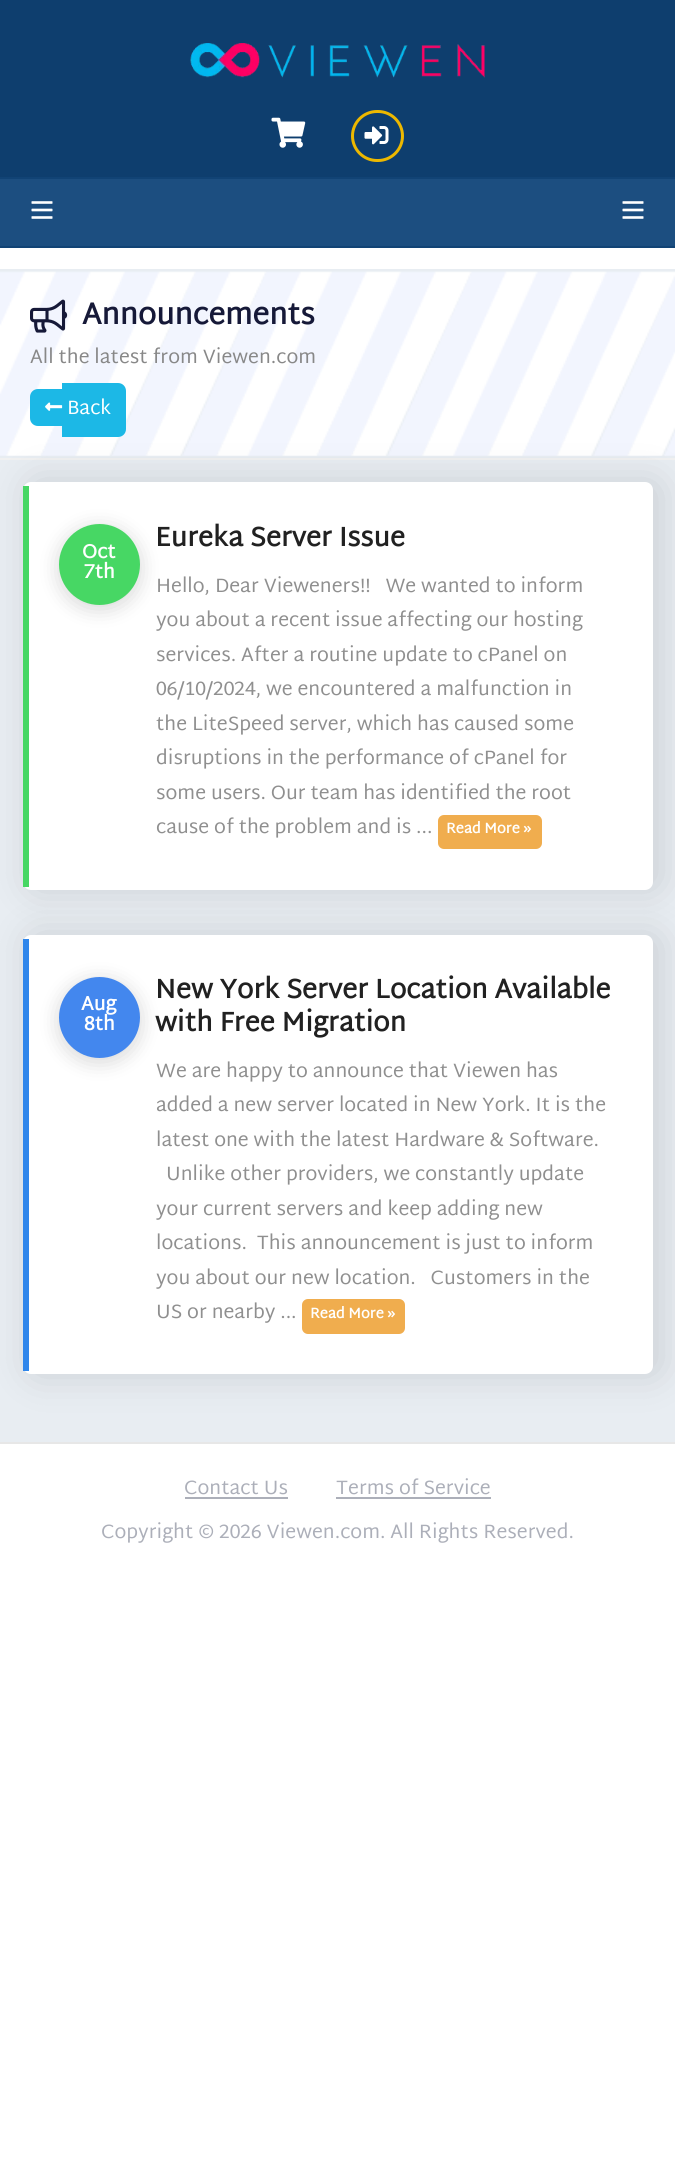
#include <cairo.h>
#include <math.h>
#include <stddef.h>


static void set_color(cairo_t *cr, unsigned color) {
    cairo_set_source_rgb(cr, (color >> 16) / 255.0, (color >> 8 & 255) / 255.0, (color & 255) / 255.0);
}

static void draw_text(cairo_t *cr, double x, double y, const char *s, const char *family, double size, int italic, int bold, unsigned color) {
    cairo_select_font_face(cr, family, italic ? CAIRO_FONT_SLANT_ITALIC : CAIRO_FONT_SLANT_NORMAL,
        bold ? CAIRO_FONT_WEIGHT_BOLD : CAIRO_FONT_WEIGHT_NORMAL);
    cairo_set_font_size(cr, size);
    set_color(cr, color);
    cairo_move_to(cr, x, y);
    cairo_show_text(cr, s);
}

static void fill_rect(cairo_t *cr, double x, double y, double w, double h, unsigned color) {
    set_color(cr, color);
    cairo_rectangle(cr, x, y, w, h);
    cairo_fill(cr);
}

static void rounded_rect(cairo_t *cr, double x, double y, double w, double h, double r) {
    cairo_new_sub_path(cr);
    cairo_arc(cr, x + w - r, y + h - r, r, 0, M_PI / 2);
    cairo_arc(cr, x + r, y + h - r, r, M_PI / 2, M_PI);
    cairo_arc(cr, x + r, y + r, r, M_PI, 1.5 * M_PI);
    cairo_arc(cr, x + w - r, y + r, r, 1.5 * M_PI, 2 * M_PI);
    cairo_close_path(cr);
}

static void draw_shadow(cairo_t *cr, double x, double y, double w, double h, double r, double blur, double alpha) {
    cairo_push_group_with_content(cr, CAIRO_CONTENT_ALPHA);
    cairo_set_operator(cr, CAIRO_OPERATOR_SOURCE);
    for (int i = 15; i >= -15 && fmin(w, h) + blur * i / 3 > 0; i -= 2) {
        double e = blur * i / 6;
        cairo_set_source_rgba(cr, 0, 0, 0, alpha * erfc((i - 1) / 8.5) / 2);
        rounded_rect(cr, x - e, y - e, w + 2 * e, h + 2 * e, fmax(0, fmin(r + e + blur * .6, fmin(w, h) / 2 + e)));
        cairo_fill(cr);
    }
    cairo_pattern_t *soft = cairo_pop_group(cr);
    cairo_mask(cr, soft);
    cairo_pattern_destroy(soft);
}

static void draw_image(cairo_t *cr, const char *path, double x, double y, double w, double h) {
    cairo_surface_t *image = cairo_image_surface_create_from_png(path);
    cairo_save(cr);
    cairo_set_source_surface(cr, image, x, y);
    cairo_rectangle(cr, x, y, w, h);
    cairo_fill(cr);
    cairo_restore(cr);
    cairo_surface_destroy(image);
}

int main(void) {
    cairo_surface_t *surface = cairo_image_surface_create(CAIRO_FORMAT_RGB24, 675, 2158);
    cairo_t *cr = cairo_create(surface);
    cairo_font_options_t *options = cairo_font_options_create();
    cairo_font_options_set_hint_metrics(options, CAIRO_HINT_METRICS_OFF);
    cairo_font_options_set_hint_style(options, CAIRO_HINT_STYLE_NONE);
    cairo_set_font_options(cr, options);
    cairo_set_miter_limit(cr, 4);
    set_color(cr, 0xFFFFFF);
    cairo_paint(cr);
    fill_rect(cr, 0, 0, 675, 177, 0x0E3E6E);
    draw_image(cr, "assets/img1.png", 190, 43, 295, 35);
    draw_image(cr, "assets/img2.png", 271, 117, 35, 31);
    rounded_rect(cr, 352.5, 111.5, 50, 49, 24.5);
    set_color(cr, 0xEDB800);
    cairo_set_line_width(cr, 3);
    cairo_stroke(cr);
    draw_image(cr, "assets/img3.png", 364, 126, 25, 19);
    fill_rect(cr, 0, 179, 675, 67, 0x1C4E80);
    fill_rect(cr, 0, 177, 675, 2, 0x114375);
    fill_rect(cr, 0, 246, 675, 2, 0x114375);
    draw_image(cr, "assets/img4.png", 31, 201, 22, 18);
    draw_image(cr, "assets/img4.png", 622, 201, 22, 18);
    fill_rect(cr, 0, 269, 675, 1173, 0xE8EDF2);
    draw_image(cr, "assets/img5.png", 0, 271, 675, 185);
    fill_rect(cr, 0, 458, 675, 2, 0xF1F1F1);
    draw_image(cr, "assets/img6.png", 30, 299, 38, 34);
    draw_text(cr, 82, 324, "Announcements", "Martel Sans", 30, 0, 1, 0x161938);
    draw_text(cr, 30, 363, "All the latest from Viewen.com", "Martel Sans", 19.5, 0, 0, 0x888888);
    set_color(cr, 0x000000);
    draw_shadow(cr, 29, 480, 633, 411, 9, 20, 0.12);
    set_color(cr, 0x1CB8E6);
    cairo_new_path(cr);
    cairo_move_to(cr, 38, 389);
    cairo_line_to(cr, 62, 389);
    cairo_line_to(cr, 62, 426);
    cairo_line_to(cr, 38, 426);
    cairo_curve_to(cr, 33.5, 426, 30, 422.5, 30, 418);
    cairo_line_to(cr, 30, 397);
    cairo_curve_to(cr, 30, 392.5, 33.5, 389, 38, 389);
    cairo_close_path(cr);
    cairo_fill(cr);
    cairo_new_path(cr);
    cairo_move_to(cr, 62, 383);
    cairo_line_to(cr, 118, 383);
    cairo_curve_to(cr, 122.5, 383, 126, 386.5, 126, 391);
    cairo_line_to(cr, 126, 429);
    cairo_curve_to(cr, 126, 433.5, 122.5, 437, 118, 437);
    cairo_line_to(cr, 62, 437);
    cairo_close_path(cr);
    cairo_fill(cr);
    draw_image(cr, "assets/img7.png", 45, 402, 18, 9);
    draw_text(cr, 67, 414, "Back", "Martel Sans", 19.5, 0, 0, 0xFFFFFF);
    rounded_rect(cr, 23, 482, 630, 408, 8);
    cairo_fill(cr);
    fill_rect(cr, 23, 486, 6, 401, 0x47D764);
    set_color(cr, 0x000000);
    draw_shadow(cr, 59, 528, 81, 81, 40.5, 10.5, 0.16);
    set_color(cr, 0x47D764);
    cairo_arc(cr, 99.5, 564.5, 40.5, 0, 2 * M_PI);
    cairo_fill(cr);
    draw_text(cr, 82, 558, "Oct", "Martel Sans", 19.5, 0, 1, 0xFFFFFF);
    draw_text(cr, 84, 578, "7th", "Martel Sans", 19.5, 0, 1, 0xFFFFFF);
    draw_text(cr, 155, 546, "Eureka Server Issue", "Martel Sans", 27, 0, 1, 0x212121);
    draw_text(cr, 156, 592, "Hello, Dear Vieweners!!   We wanted to inform", "Martel Sans", 19.5, 0, 0, 0x8F8F8F);
    draw_text(cr, 156, 626, "you about a recent issue affecting our hosting", "Martel Sans", 19.5, 0, 0, 0x8F8F8F);
    draw_text(cr, 156, 661, "services. After a routine update to cPanel on", "Martel Sans", 19.5, 0, 0, 0x8F8F8F);
    draw_text(cr, 156, 695, "06/10/2024, we encountered a malfunction in", "Martel Sans", 19.5, 0, 0, 0x8F8F8F);
    draw_text(cr, 156, 730, "the LiteSpeed server, which has caused some", "Martel Sans", 19.5, 0, 0, 0x8F8F8F);
    draw_text(cr, 156, 764, "disruptions in the performance of cPanel for", "Martel Sans", 19.5, 0, 0, 0x8F8F8F);
    draw_text(cr, 156, 799, "some users. Our team has identified the root", "Martel Sans", 19.5, 0, 0, 0x8F8F8F);
    draw_text(cr, 156, 833, "cause of the problem and is ...", "Martel Sans", 19.5, 0, 0, 0x8F8F8F);
    set_color(cr, 0xF0AD4E);
    rounded_rect(cr, 438, 815, 104, 34, 6);
    cairo_fill(cr);
    draw_text(cr, 446, 833, "Read More »", "Martel Sans", 14.5, 0, 1, 0xFFFFFF);
    set_color(cr, 0x000000);
    draw_shadow(cr, 29, 933, 633, 443, 9, 20, 0.12);
    set_color(cr, 0xFFFFFF);
    rounded_rect(cr, 23, 935, 630, 439, 8);
    cairo_fill(cr);
    fill_rect(cr, 23, 939, 6, 432, 0x2F86EB);
    set_color(cr, 0x000000);
    draw_shadow(cr, 59, 981, 81, 81, 40.5, 10.5, 0.16);
    set_color(cr, 0x4387EE);
    cairo_arc(cr, 99.5, 1017.5, 40.5, 0, 2 * M_PI);
    cairo_fill(cr);
    draw_text(cr, 81, 1010, "Aug", "Martel Sans", 19.5, 0, 1, 0xFFFFFF);
    draw_text(cr, 84, 1030, "8th", "Martel Sans", 19.5, 0, 1, 0xFFFFFF);
    draw_text(cr, 155, 998, "New York Server Location Available", "Martel Sans", 27, 0, 1, 0x212121);
    draw_text(cr, 155, 1031, "with Free Migration", "Martel Sans", 27, 0, 1, 0x212121);
    draw_text(cr, 156, 1077, "We are happy to announce that Viewen has", "Martel Sans", 19.5, 0, 0, 0x8F8F8F);
    draw_text(cr, 156, 1111, "added a new server located in New York. It is the", "Martel Sans", 19.5, 0, 0, 0x8F8F8F);
    draw_text(cr, 156, 1146, "latest one with the latest Hardware & Software.", "Martel Sans", 19.5, 0, 0, 0x8F8F8F);
    draw_text(cr, 166, 1180, "Unlike other providers, we constantly update", "Martel Sans", 19.5, 0, 0, 0x8F8F8F);
    draw_text(cr, 156, 1215, "your current servers and keep adding new", "Martel Sans", 19.5, 0, 0, 0x8F8F8F);
    draw_text(cr, 156, 1249, "locations.  This announcement is just to inform", "Martel Sans", 19.5, 0, 0, 0x8F8F8F);
    draw_text(cr, 156, 1284, "you about our new location.   Customers in the", "Martel Sans", 19.5, 0, 0, 0x8F8F8F);
    draw_text(cr, 156, 1318, "US or nearby ...", "Martel Sans", 19.5, 0, 0, 0x8F8F8F);
    set_color(cr, 0xF0AD4E);
    rounded_rect(cr, 302, 1299, 103, 35, 6);
    cairo_fill(cr);
    draw_text(cr, 310, 1318, "Read More »", "Martel Sans", 14.5, 0, 1, 0xFFFFFF);
    fill_rect(cr, 0, 1442, 675, 2, 0xE7E7E7);
    draw_text(cr, 184, 1494, "Contact Us", "Martel Sans", 19.5, 0, 0, 0xACAFB9);
    fill_rect(cr, 185, 1497, 103, 2, 0xACAFB9);
    draw_text(cr, 336, 1494, "Terms of Service", "Martel Sans", 19.5, 0, 0, 0xACAFB9);
    fill_rect(cr, 336, 1497, 155, 2, 0xACAFB9);
    draw_text(cr, 101, 1538, "Copyright © 2026 Viewen.com. All Rights Reserved.", "Martel Sans", 19.5, 0, 0, 0xACAFB9);
    cairo_surface_write_to_png(surface, "output.png");
    cairo_font_options_destroy(options);
    cairo_destroy(cr);
    cairo_surface_destroy(surface);
    return 0;
}
